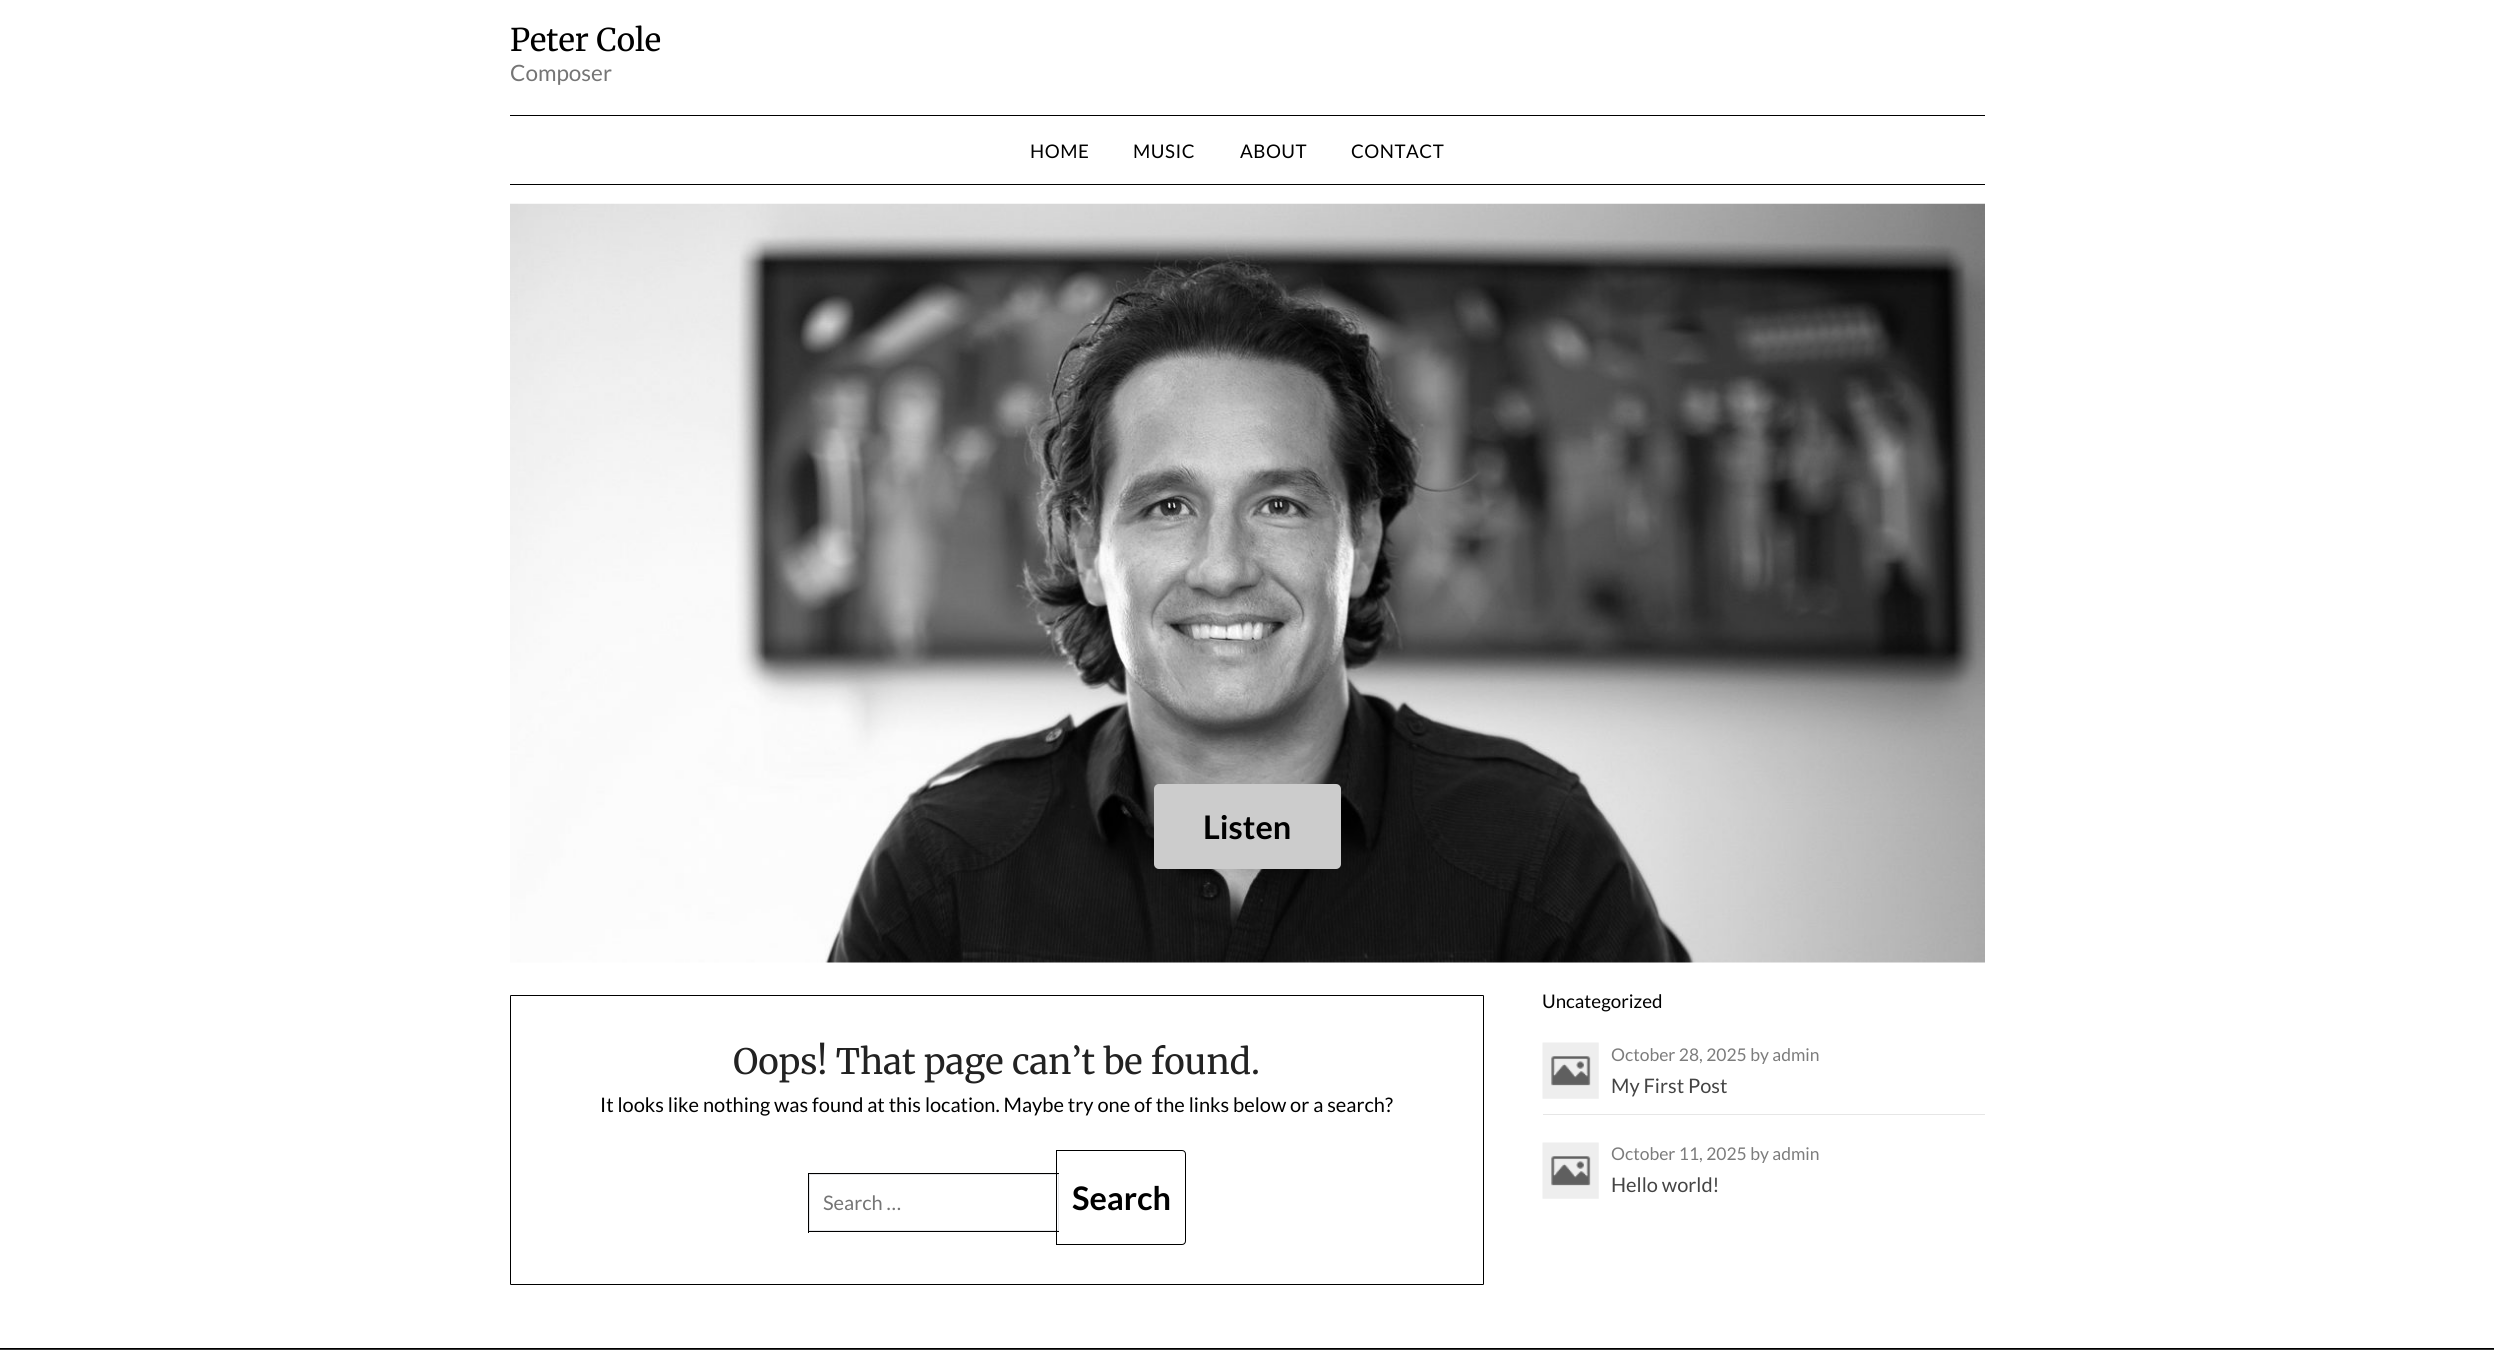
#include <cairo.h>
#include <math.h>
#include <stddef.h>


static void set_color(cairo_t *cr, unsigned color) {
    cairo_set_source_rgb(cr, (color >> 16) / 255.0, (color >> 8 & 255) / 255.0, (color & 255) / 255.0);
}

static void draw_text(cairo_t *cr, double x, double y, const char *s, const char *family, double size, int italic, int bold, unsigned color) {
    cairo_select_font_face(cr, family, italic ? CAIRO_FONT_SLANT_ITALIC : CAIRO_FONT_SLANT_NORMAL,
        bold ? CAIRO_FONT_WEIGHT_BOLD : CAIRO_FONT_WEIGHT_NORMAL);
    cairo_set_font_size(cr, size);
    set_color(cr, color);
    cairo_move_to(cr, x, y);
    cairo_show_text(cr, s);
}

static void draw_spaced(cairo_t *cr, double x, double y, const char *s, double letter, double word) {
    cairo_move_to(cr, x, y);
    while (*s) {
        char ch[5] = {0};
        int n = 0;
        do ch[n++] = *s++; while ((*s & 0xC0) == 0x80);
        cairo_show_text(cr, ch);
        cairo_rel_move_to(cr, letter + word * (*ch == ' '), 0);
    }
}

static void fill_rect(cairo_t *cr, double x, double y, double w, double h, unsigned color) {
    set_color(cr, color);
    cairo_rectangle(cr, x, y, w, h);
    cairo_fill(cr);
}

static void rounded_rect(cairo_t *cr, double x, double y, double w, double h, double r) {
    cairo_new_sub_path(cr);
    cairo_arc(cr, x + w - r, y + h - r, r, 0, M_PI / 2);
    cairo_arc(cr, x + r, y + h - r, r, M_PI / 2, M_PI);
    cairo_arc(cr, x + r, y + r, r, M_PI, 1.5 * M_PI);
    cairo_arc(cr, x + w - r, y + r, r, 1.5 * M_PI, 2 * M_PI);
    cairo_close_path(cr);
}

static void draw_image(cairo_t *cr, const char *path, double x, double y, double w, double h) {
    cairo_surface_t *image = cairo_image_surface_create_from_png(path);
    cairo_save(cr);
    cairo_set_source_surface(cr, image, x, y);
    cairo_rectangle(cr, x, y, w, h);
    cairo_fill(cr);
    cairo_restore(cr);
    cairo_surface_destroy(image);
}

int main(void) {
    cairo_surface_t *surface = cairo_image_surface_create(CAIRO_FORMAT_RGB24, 2494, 1364);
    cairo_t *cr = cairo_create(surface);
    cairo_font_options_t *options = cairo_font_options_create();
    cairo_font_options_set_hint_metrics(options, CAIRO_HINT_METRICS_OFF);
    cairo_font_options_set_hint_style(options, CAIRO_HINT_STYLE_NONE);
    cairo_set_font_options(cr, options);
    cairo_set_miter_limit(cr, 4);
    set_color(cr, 0xFFFFFF);
    cairo_paint(cr);
    draw_text(cr, 510, 51, "Peter Cole", "Merriweather", 31.25, 0, 0, 0x000000);
    draw_text(cr, 510, 81, "Composer", "Lato", 22.5, 0, 0, 0x757575);
    fill_rect(cr, 510, 115, 1475, 1, 0x000000);
    fill_rect(cr, 510, 184, 1475, 1, 0x000000);
    cairo_set_font_size(cr, 18.75);
    draw_spaced(cr, 1030, 158, "HOME", 0.5, 0);
    draw_spaced(cr, 1133, 158, "MUSIC", 0.5, 0);
    draw_spaced(cr, 1240, 158, "ABOUT", 0.5, 0);
    draw_spaced(cr, 1351, 158, "CONTACT", 0.5, 0);
    draw_image(cr, "assets/img1.png", 510, 203, 1475, 760);
    set_color(cr, 0xCCCCCC);
    rounded_rect(cr, 1154, 784, 187, 85, 5);
    cairo_fill(cr);
    draw_text(cr, 1203, 839, "Listen", "Lato", 32.5, 0, 1, 0x000000);
    rounded_rect(cr, 510.5, 995.5, 973, 289, 0.5);
    cairo_set_line_width(cr, 1);
    cairo_stroke(cr);
    draw_text(cr, 733, 1074, "Oops! That page can’t be found.", "Merriweather", 35, 0, 0, 0x222222);
    draw_text(cr, 600, 1112, "It looks like nothing was found at this location. Maybe try one of the links below or a search?", "Lato", 20, 0, 0, 0x000000);
    fill_rect(cr, 808, 1173, 251, 1, 0x000000);
    fill_rect(cr, 808, 1231, 251, 1, 0x000000);
    fill_rect(cr, 808, 1173, 1, 60, 0x000000);
    cairo_rectangle(cr, 809.5, 1174.5, 249, 56);
    set_color(cr, 0xE5E6E9);
    cairo_stroke(cr);
    draw_text(cr, 823, 1210, "Search …", "Lato", 20, 0, 0, 0x757575);
    cairo_new_path(cr);
    cairo_move_to(cr, 1056.5, 1150.5);
    cairo_line_to(cr, 1182, 1150.5);
    cairo_curve_to(cr, 1184, 1150.5, 1185.5, 1152, 1185.5, 1154);
    cairo_line_to(cr, 1185.5, 1241);
    cairo_curve_to(cr, 1185.5, 1243, 1184, 1244.5, 1182, 1244.5);
    cairo_line_to(cr, 1056.5, 1244.5);
    cairo_close_path(cr);
    set_color(cr, 0x000000);
    cairo_stroke(cr);
    draw_text(cr, 1072, 1210, "Search", "Lato", 32.5, 0, 1, 0x000000);
    draw_text(cr, 1542, 1008, "Uncategorized", "Lato", 18.75, 0, 0, 0x000000);
    fill_rect(cr, 1543, 1114, 442, 1, 0xE6E6E6);
    draw_image(cr, "assets/img2.png", 1542, 1042, 57, 57);
    draw_text(cr, 1611, 1061, "October 28, 2025 by admin", "Lato", 17.5, 0, 0, 0x7C7C7C);
    draw_text(cr, 1611, 1093, "My First Post", "Lato", 20, 0, 0, 0x444444);
    draw_image(cr, "assets/img3.png", 1542, 1142, 57, 57);
    draw_text(cr, 1611, 1160, "October 11, 2025 by admin", "Lato", 17.5, 0, 0, 0x7C7C7C);
    draw_text(cr, 1611, 1192, "Hello world!", "Lato", 20, 0, 0, 0x444444);
    fill_rect(cr, 0, 1348, 2494, 1, 0x000000);
    fill_rect(cr, 0, 1349, 2494, 1, 0x333333);
    cairo_surface_write_to_png(surface, "output.png");
    cairo_font_options_destroy(options);
    cairo_destroy(cr);
    cairo_surface_destroy(surface);
    return 0;
}
